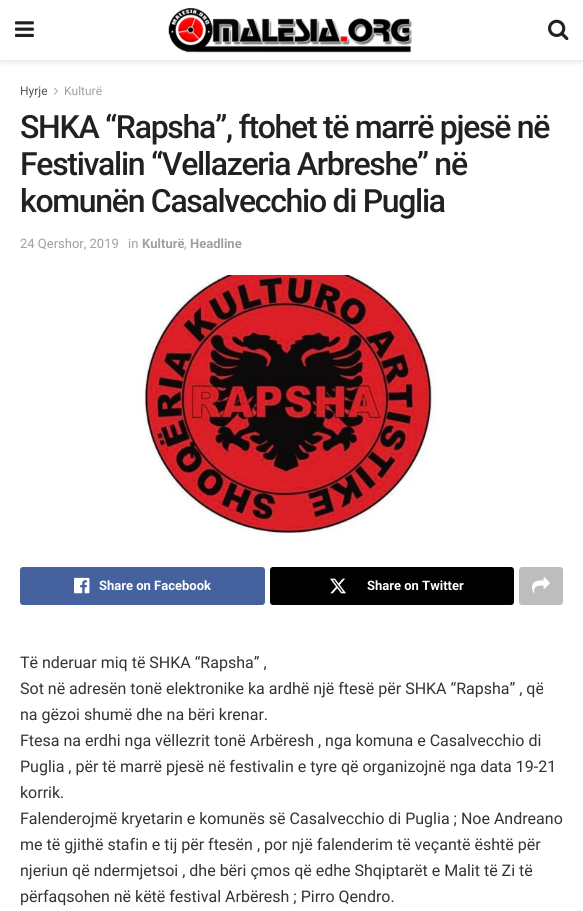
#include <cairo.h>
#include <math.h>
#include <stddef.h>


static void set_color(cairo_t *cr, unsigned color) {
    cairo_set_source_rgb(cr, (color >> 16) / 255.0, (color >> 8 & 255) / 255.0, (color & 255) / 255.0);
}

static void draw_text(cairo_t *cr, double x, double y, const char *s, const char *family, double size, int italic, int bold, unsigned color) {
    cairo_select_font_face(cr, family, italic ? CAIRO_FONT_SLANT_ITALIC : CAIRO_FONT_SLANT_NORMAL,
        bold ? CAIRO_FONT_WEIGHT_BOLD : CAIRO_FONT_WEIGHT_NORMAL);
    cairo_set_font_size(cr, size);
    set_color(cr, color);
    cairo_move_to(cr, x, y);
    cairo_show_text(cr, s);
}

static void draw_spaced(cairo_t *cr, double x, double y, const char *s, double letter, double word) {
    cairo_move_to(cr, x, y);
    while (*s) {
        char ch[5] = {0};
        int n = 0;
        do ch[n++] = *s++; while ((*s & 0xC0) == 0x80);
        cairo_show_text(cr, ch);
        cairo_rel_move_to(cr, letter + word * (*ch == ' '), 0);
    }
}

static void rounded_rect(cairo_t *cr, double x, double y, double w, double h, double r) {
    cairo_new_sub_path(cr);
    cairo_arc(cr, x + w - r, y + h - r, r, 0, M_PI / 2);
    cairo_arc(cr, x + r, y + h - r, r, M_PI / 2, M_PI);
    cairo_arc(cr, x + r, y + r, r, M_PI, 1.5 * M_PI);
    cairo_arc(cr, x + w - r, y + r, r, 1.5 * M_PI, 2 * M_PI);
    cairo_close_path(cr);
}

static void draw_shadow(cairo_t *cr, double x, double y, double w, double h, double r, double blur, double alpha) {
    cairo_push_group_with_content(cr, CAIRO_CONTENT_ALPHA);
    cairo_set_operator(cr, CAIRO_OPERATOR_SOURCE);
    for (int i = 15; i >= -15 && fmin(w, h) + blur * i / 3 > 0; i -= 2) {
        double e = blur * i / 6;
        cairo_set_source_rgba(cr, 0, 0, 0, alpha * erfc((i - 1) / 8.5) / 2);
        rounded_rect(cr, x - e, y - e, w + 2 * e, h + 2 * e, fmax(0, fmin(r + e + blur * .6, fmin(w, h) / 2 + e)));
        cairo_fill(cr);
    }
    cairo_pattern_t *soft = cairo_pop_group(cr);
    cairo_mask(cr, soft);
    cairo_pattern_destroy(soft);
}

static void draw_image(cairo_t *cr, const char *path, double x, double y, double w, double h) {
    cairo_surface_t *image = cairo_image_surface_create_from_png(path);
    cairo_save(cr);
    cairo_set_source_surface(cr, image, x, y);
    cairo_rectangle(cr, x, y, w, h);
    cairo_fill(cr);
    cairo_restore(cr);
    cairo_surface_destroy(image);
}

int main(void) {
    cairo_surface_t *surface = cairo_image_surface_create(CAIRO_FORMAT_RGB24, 583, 911);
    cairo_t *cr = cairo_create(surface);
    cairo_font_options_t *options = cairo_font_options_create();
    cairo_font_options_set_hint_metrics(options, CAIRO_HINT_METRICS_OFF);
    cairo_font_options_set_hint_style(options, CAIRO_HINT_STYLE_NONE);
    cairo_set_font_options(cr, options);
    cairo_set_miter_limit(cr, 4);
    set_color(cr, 0xFFFFFF);
    cairo_paint(cr);
    cairo_save(cr);
    cairo_rectangle(cr, 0, 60, 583, 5);
    cairo_clip(cr);
    set_color(cr, 0x000000);
    draw_shadow(cr, 0, 2, 583, 60, 0, 3, 0.1);
    cairo_restore(cr);
    draw_image(cr, "assets/img1.png", 15, 21, 19, 16);
    draw_image(cr, "assets/img2.png", 168, 8, 244, 45);
    draw_image(cr, "assets/img3.png", 548, 19, 21, 22);
    draw_text(cr, 20, 95, "Hyrje", "Roboto", 12, 0, 0, 0x53585C);
    draw_image(cr, "assets/img4.png", 54, 87, 4, 8);
    draw_text(cr, 64, 95, "Kulturë", "Roboto", 12, 0, 0, 0xA0A0A0);
    cairo_select_font_face(cr, "Roboto Medium", CAIRO_FONT_SLANT_NORMAL, CAIRO_FONT_WEIGHT_NORMAL);
    cairo_set_font_size(cr, 32);
    set_color(cr, 0x212121);
    draw_spaced(cr, 20, 138, "SHKA “Rapsha”, ftohet të marrë pjesë në", -1.3, 0);
    draw_spaced(cr, 20, 175, "Festivalin “Vellazeria Arbreshe” në", -1.3, 0);
    draw_spaced(cr, 20, 212, "komunën Casalvecchio di Puglia", -1.3, 0);
    draw_text(cr, 20, 248, "24 Qershor, 2019", "Roboto", 13, 0, 0, 0xA0A0A0);
    draw_text(cr, 128, 248, "in", "Roboto", 13, 0, 0, 0xA0A0A0);
    draw_text(cr, 142, 248, "Kulturë", "Roboto", 13, 0, 1, 0xA0A0A0);
    draw_text(cr, 184, 248, ",", "Roboto", 13, 0, 0, 0xA0A0A0);
    draw_text(cr, 190, 248, "Headline", "Roboto", 13, 0, 1, 0xA0A0A0);
    draw_image(cr, "assets/img5.png", 20, 275, 543, 272);
    set_color(cr, 0x45629F);
    rounded_rect(cr, 20, 567, 245, 38, 3);
    cairo_fill(cr);
    draw_image(cr, "assets/img6.png", 74, 577, 16, 17);
    draw_text(cr, 99, 590, "Share on Facebook", "Roboto", 13, 0, 1, 0xFFFFFF);
    set_color(cr, 0x000000);
    rounded_rect(cr, 270, 567, 244, 38, 3);
    cairo_fill(cr);
    draw_image(cr, "assets/img7.png", 330, 578, 16, 16);
    draw_text(cr, 367, 590, "Share on Twitter", "Roboto", 13, 0, 1, 0xFFFFFF);
    set_color(cr, 0xBDBDBD);
    rounded_rect(cr, 519, 567, 44, 38, 3);
    cairo_fill(cr);
    draw_image(cr, "assets/img8.png", 532, 577, 18, 17);
    draw_text(cr, 20, 668, "Të nderuar miq të SHKA “Rapsha” ,", "Roboto", 16, 0, 0, 0x333333);
    draw_text(cr, 20, 694, "Sot në adresën tonë elektronike ka ardhë një ftesë për SHKA “Rapsha” , që", "Roboto", 16, 0, 0, 0x333333);
    draw_text(cr, 20, 720, "na gëzoi shumë dhe na bëri krenar.", "Roboto", 16, 0, 0, 0x333333);
    draw_text(cr, 20, 746, "Ftesa na erdhi nga vëllezrit tonë Arbëresh , nga komuna e Casalvecchio di", "Roboto", 16, 0, 0, 0x333333);
    draw_text(cr, 20, 772, "Puglia , për të marrë pjesë në festivalin e tyre që organizojnë nga data 19-21", "Roboto", 16, 0, 0, 0x333333);
    draw_text(cr, 20, 798, "korrik.", "Roboto", 16, 0, 0, 0x333333);
    draw_text(cr, 20, 824, "Falenderojmë kryetarin e komunës së Casalvecchio di Puglia ; Noe Andreano", "Roboto", 16, 0, 0, 0x333333);
    draw_text(cr, 20, 850, "me të gjithë stafin e tij për ftesën , por një falenderim të veçantë është për", "Roboto", 16, 0, 0, 0x333333);
    draw_text(cr, 20, 876, "njeriun që ndermjetsoi , dhe bëri çmos që edhe Shqiptarët e Malit të Zi të", "Roboto", 16, 0, 0, 0x333333);
    draw_text(cr, 20, 902, "përfaqsohen në këtë festival Arbëresh ; Pirro Qendro.", "Roboto", 16, 0, 0, 0x333333);
    cairo_surface_write_to_png(surface, "output.png");
    cairo_font_options_destroy(options);
    cairo_destroy(cr);
    cairo_surface_destroy(surface);
    return 0;
}
